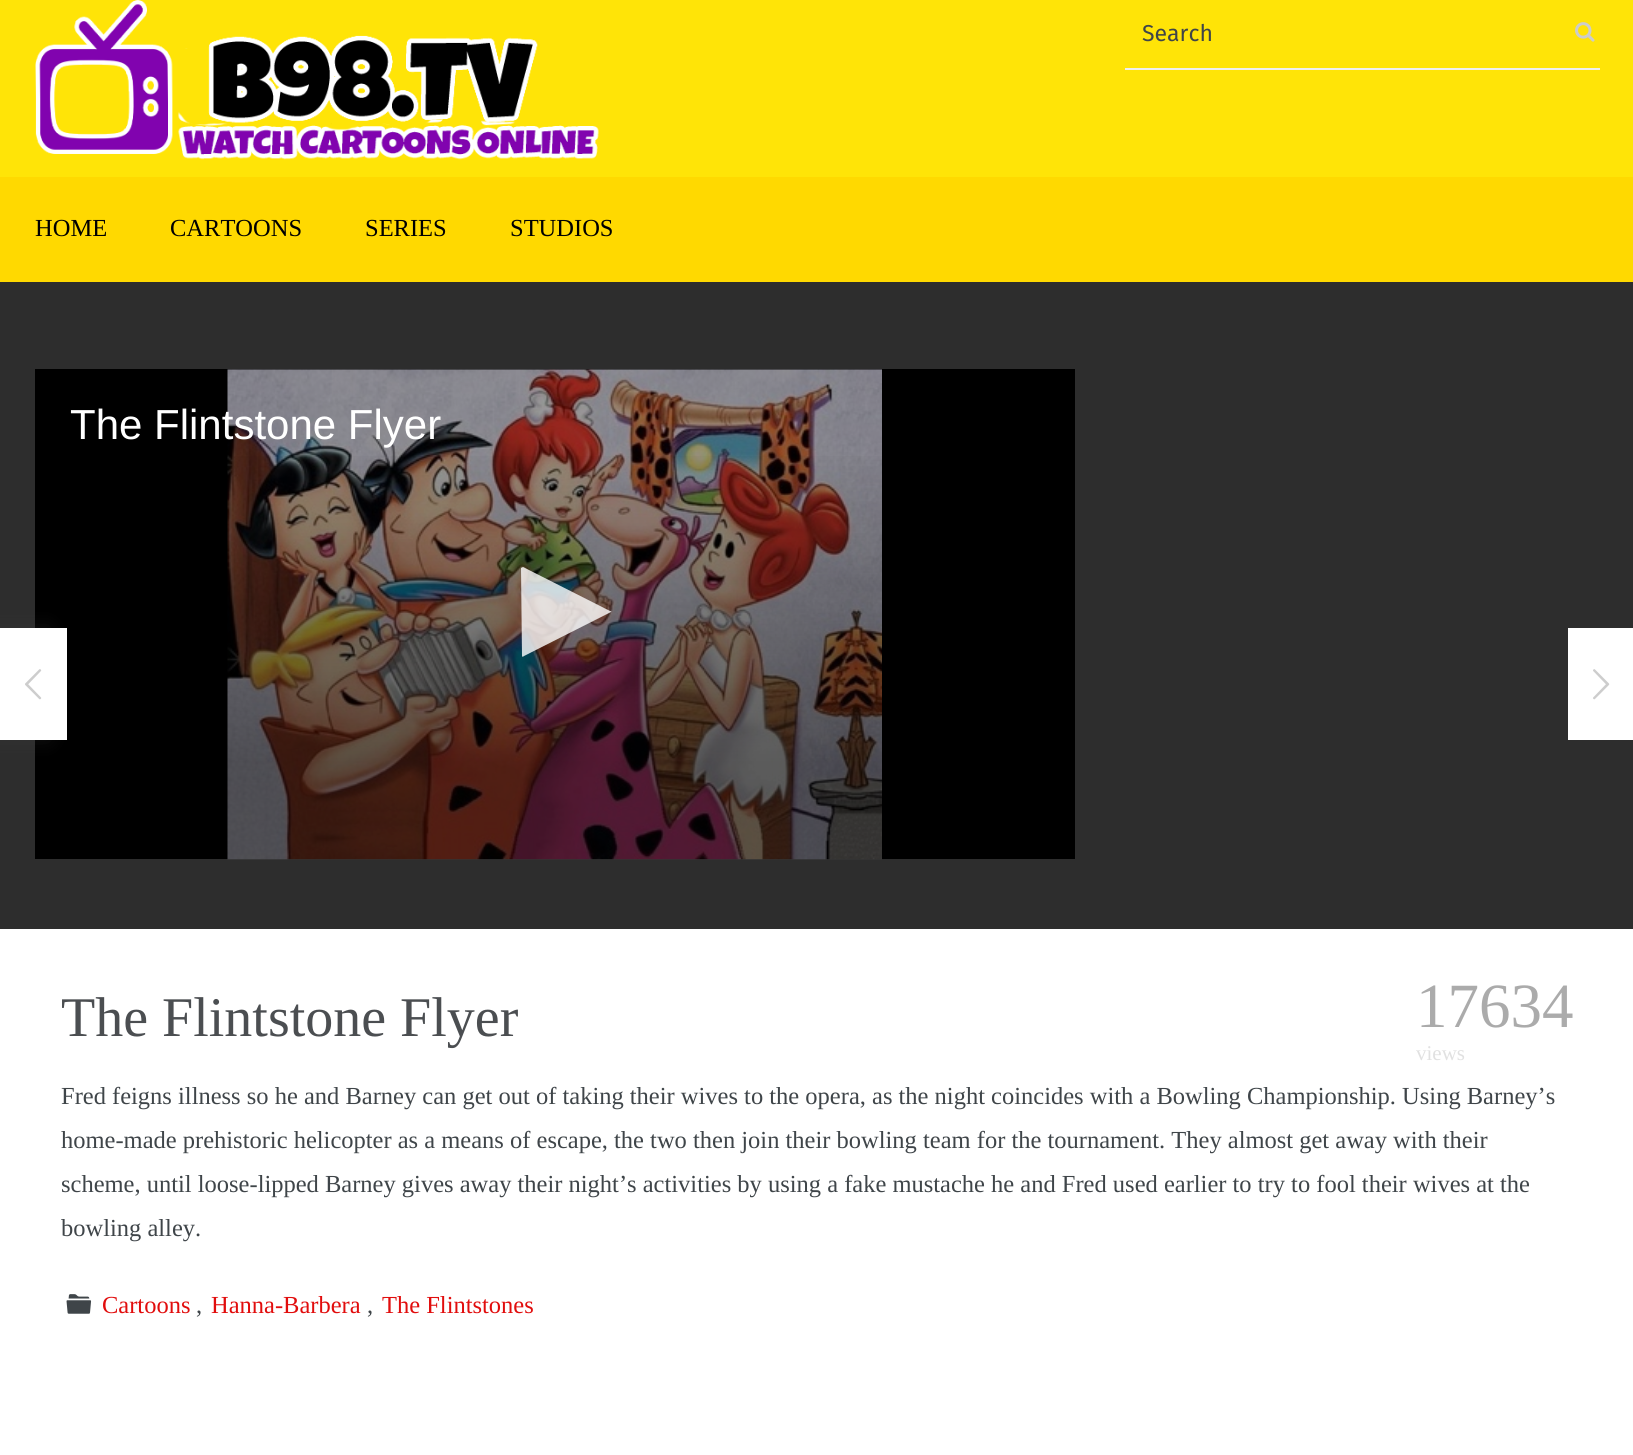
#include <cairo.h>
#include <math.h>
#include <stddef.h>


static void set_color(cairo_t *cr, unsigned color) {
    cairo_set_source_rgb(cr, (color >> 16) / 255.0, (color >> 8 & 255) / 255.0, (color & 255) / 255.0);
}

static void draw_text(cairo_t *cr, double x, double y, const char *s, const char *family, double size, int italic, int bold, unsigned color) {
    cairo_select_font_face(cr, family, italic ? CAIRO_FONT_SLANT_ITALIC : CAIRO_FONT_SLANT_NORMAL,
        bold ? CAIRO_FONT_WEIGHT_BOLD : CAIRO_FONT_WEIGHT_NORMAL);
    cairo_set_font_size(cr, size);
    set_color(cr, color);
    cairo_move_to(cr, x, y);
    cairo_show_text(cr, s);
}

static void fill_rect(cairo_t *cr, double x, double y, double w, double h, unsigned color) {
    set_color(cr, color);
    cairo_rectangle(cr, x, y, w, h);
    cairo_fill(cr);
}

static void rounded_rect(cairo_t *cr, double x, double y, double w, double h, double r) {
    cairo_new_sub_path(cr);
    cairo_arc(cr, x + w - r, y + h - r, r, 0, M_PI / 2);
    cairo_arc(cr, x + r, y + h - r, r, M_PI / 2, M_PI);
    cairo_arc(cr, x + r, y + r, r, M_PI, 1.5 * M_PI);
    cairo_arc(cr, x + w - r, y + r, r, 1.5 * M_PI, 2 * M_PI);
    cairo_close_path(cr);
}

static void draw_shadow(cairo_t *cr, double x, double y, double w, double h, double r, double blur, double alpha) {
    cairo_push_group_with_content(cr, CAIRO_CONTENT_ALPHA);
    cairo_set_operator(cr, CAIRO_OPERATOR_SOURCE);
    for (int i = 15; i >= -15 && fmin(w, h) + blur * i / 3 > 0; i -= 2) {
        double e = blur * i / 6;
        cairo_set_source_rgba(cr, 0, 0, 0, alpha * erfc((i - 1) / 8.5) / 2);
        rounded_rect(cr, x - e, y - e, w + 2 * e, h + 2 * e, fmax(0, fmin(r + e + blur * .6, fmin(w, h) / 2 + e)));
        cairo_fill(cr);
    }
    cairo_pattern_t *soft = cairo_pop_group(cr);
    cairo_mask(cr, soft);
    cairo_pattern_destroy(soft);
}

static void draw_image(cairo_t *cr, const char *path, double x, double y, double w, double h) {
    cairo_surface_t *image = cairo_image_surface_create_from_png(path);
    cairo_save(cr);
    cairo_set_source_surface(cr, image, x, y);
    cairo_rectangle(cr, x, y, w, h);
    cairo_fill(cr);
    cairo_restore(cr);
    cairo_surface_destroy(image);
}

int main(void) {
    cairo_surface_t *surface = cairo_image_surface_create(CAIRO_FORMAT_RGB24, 1633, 1455);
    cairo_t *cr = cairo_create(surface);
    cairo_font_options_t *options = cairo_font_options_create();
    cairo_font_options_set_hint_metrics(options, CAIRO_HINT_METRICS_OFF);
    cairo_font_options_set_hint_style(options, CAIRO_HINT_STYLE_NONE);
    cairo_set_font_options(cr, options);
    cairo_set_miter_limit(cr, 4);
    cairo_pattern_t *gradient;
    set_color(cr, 0xFFFFFF);
    cairo_paint(cr);
    fill_rect(cr, 0, 0, 1633, 177, 0xFFE407);
    draw_image(cr, "assets/img1.png", 35, 0, 564, 160);
    fill_rect(cr, 1125, 68, 475, 2, 0xEFEFEF);
    draw_text(cr, 1142, 41, "Search", "Fira Sans", 23, 0, 0, 0x3F4549);
    draw_image(cr, "assets/img2.png", 1575, 22, 20, 20);
    fill_rect(cr, 0, 177, 1633, 105, 0xFFD900);
    draw_text(cr, 35, 236, "HOME", "Liberation Serif", 24.5, 0, 0, 0x000000);
    draw_text(cr, 170, 236, "CARTOONS", "Liberation Serif", 24.5, 0, 0, 0x000000);
    draw_text(cr, 365, 236, "SERIES", "Liberation Serif", 24.5, 0, 0, 0x000000);
    draw_text(cr, 510, 236, "STUDIOS", "Liberation Serif", 24.5, 0, 0, 0x000000);
    fill_rect(cr, 0, 282, 1633, 647, 0x2D2D2D);
    fill_rect(cr, 35, 369, 1040, 490, 0x000000);
    draw_image(cr, "assets/img3.png", 227, 369, 655, 491);
    draw_text(cr, 70, 439, "The Flintstone Flyer", "Liberation Sans", 42, 0, 0, 0xFFFFFF);
    gradient = cairo_pattern_create_linear(555, 439, 555, 859);
    cairo_pattern_add_color_stop_rgba(gradient, 0, 0, 0, 0, 0);
    cairo_pattern_add_color_stop_rgba(gradient, 0.77, 0, 0, 0, 0.4);
    cairo_pattern_add_color_stop_rgba(gradient, 1, 0, 0, 0, 0.4);
    cairo_set_source(cr, gradient);
    cairo_pattern_destroy(gradient);
    cairo_rectangle(cr, 227, 456, 655, 403);
    cairo_fill(cr);
    cairo_set_source_rgba(cr, 1, 1, 1, 0.8);
    cairo_new_path(cr);
    cairo_move_to(cr, 524, 656);
    cairo_curve_to(cr, 523, 657, 522, 657, 522, 656);
    cairo_line_to(cr, 521, 568);
    cairo_line_to(cr, 523, 567);
    cairo_line_to(cr, 610, 611);
    cairo_curve_to(cr, 611, 611, 612, 612, 611, 612);
    cairo_close_path(cr);
    cairo_fill(cr);
    set_color(cr, 0x3C3C3C);
    draw_shadow(cr, -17, 628, 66, 112, 0, 9, 0.3);
    fill_rect(cr, 0, 628, 67, 112, 0xFFFFFF);
    draw_image(cr, "assets/img4.png", 25, 669, 17, 31);
    fill_rect(cr, 1568, 628, 65, 112, 0xFFFFFF);
    draw_image(cr, "assets/img5.png", 1593, 669, 17, 31);
    draw_text(cr, 61, 1036, "The Flintstone Flyer", "Liberation Serif", 56, 0, 0, 0x4B4E51);
    draw_text(cr, 1416, 1027, "17634", "Liberation Serif", 63, 0, 0, 0xABABAB);
    draw_text(cr, 1416, 1060, "views", "Liberation Serif", 21, 0, 0, 0xE1E1E1);
    draw_text(cr, 61, 1104, "Fred feigns illness so he and Barney can get out of taking their wives to the opera, as the night coincides with a Bowling Championship. Using Barney’s", "Liberation Serif", 24.5, 0, 0, 0x3F4549);
    draw_text(cr, 61, 1148, "home-made prehistoric helicopter as a means of escape, the two then join their bowling team for the tournament. They almost get away with their", "Liberation Serif", 24.5, 0, 0, 0x3F4549);
    draw_text(cr, 61, 1192, "scheme, until loose-lipped Barney gives away their night’s activities by using a fake mustache he and Fred used earlier to try to fool their wives at the", "Liberation Serif", 24.5, 0, 0, 0x3F4549);
    draw_text(cr, 61, 1236, "bowling alley.", "Liberation Serif", 24.5, 0, 0, 0x3F4549);
    draw_image(cr, "assets/img6.png", 66, 1294, 26, 20);
    draw_text(cr, 102, 1313, "Cartoons", "Liberation Serif", 24.5, 0, 0, 0xE10D0D);
    draw_text(cr, 196, 1313, ",", "Liberation Serif", 24.5, 0, 0, 0x3F4549);
    draw_text(cr, 211, 1313, "Hanna-Barbera", "Liberation Serif", 24.5, 0, 0, 0xE10D0D);
    draw_text(cr, 367, 1313, ",", "Liberation Serif", 24.5, 0, 0, 0x3F4549);
    draw_text(cr, 382, 1313, "The Flintstones", "Liberation Serif", 24.5, 0, 0, 0xE10D0D);
    cairo_surface_write_to_png(surface, "output.png");
    cairo_font_options_destroy(options);
    cairo_destroy(cr);
    cairo_surface_destroy(surface);
    return 0;
}
